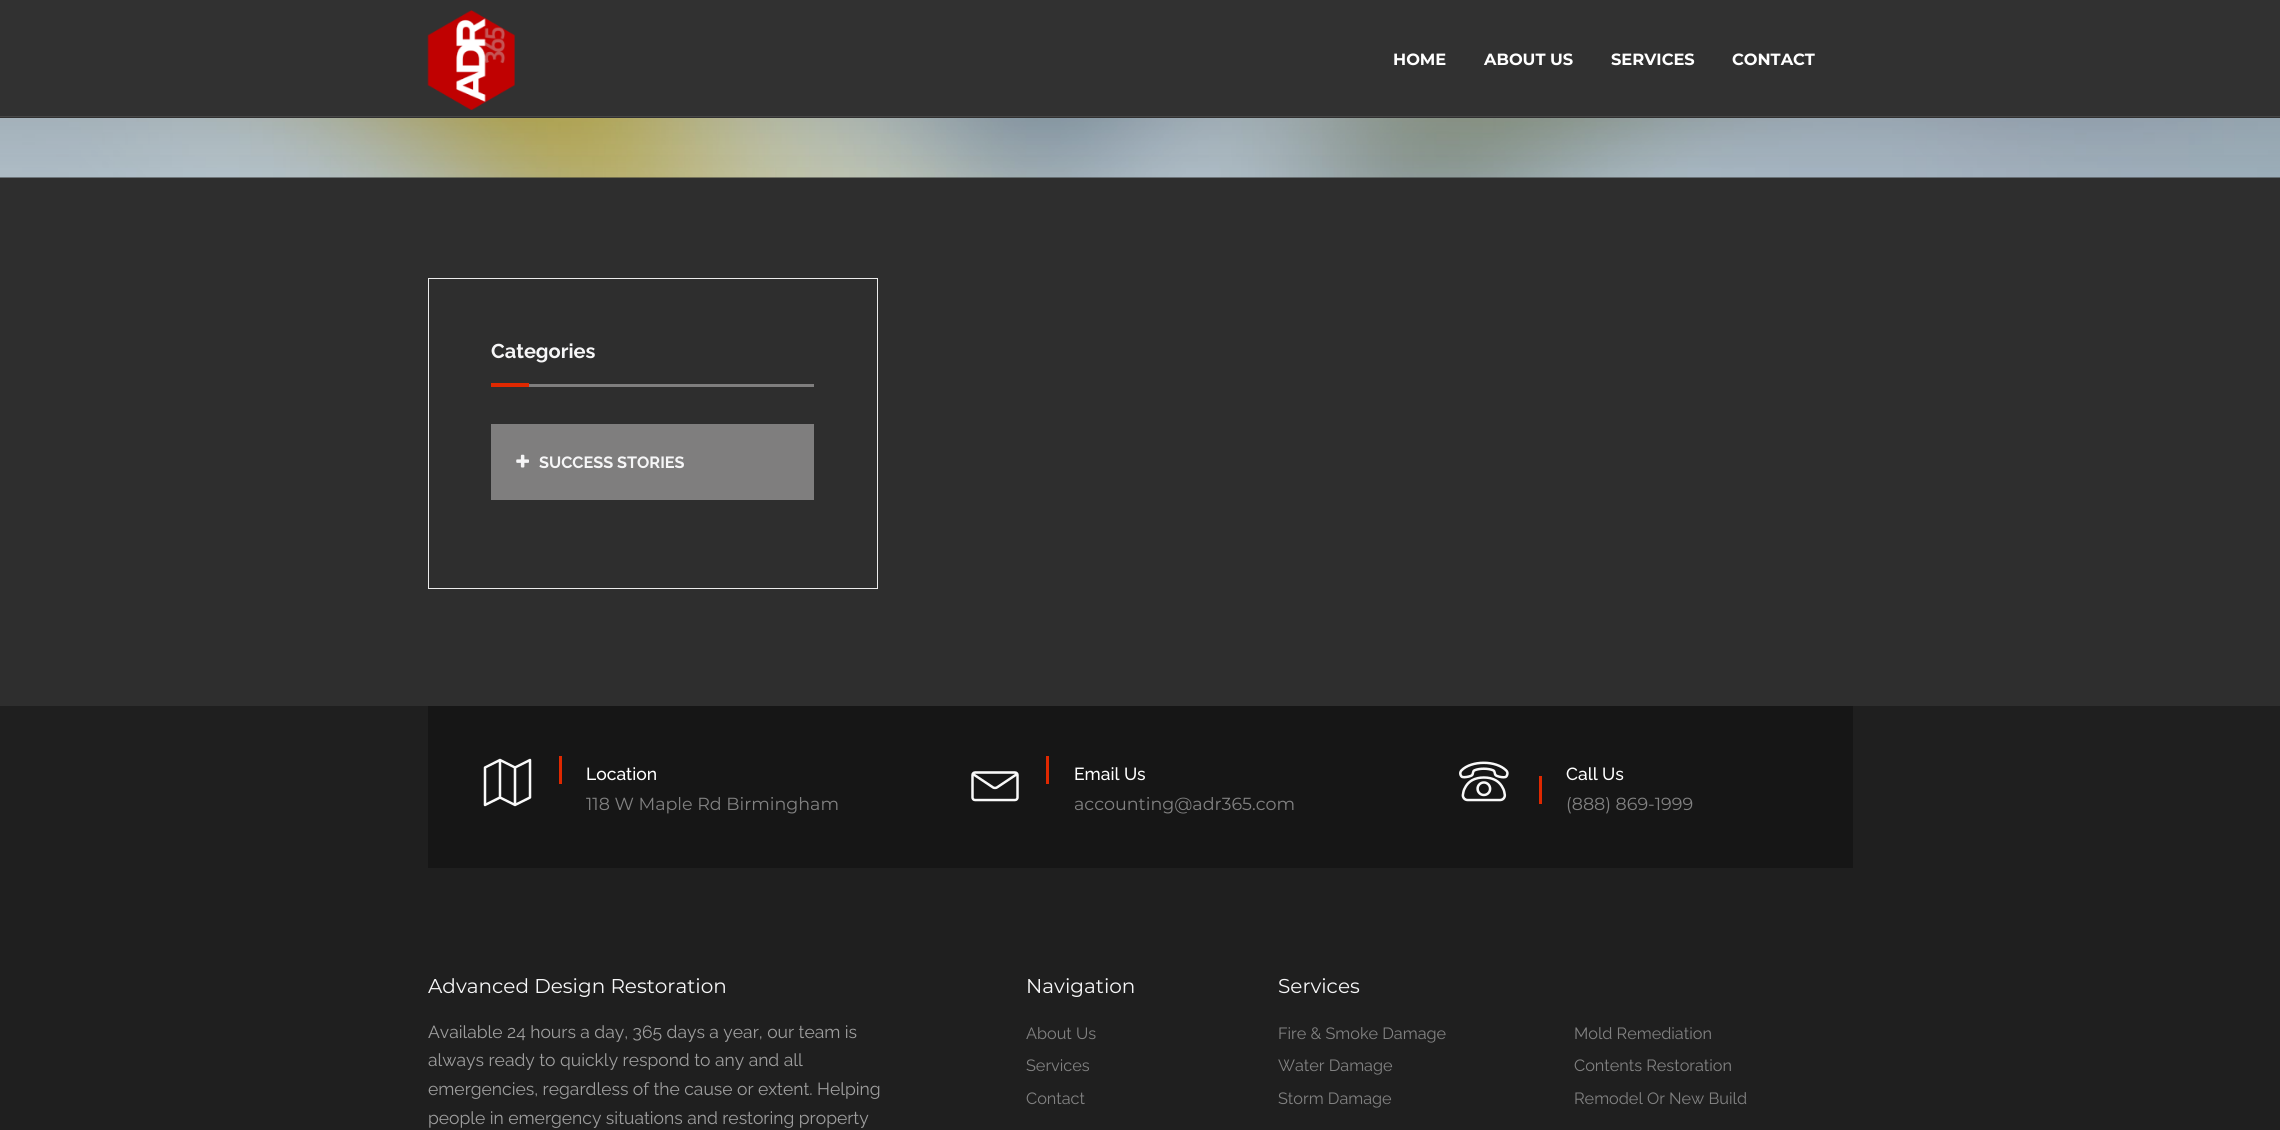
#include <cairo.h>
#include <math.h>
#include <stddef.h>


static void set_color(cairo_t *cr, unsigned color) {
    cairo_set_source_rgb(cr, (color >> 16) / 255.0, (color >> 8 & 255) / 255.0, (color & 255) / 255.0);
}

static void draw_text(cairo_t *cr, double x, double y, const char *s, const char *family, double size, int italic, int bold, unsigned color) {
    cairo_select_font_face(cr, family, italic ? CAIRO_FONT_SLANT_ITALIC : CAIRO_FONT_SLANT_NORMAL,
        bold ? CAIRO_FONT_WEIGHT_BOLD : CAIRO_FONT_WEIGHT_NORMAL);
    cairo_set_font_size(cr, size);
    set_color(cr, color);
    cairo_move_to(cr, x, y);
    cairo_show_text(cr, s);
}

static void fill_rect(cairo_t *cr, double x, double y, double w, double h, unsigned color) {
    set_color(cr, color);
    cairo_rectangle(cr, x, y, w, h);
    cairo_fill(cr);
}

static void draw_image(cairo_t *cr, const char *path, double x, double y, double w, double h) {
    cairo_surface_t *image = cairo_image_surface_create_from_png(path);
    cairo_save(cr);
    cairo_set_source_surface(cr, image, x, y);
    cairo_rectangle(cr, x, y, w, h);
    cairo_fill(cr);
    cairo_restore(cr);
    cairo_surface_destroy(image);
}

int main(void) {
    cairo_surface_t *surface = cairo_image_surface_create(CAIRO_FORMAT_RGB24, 2280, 1130);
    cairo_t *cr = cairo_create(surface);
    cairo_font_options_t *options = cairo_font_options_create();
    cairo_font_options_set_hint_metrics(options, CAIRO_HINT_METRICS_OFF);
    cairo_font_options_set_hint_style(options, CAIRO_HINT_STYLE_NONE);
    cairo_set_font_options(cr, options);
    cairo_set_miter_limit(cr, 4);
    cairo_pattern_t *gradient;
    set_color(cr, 0x2E2E2E);
    cairo_paint(cr);
    fill_rect(cr, 0, 0, 2280, 118, 0x313131);
    fill_rect(cr, 0, 116, 2280, 1, 0x464646);
    draw_image(cr, "assets/img1.png", 427, 10, 88, 100);
    draw_text(cr, 1393, 65, "HOME", "Montserrat", 16.25, 0, 1, 0xFFFFFF);
    draw_text(cr, 1484, 65, "ABOUT US", "Montserrat", 16.25, 0, 1, 0xFFFFFF);
    draw_text(cr, 1611, 65, "SERVICES", "Montserrat", 16.25, 0, 1, 0xFFFFFF);
    draw_text(cr, 1732, 65, "CONTACT", "Montserrat", 16.25, 0, 1, 0xFFFFFF);
    draw_image(cr, "assets/img2.png", 0, 118, 2280, 60);
    gradient = cairo_pattern_create_linear(1140, -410, 1140, 178);
    cairo_pattern_add_color_stop_rgba(gradient, 0, 0.098, 0.09, 0.09, 0.8);
    cairo_pattern_add_color_stop_rgba(gradient, 1, 0.133, 0.133, 0.133, 0.2);
    cairo_set_source(cr, gradient);
    cairo_pattern_destroy(gradient);
    cairo_rectangle(cr, 0, 118, 2280, 60);
    cairo_fill(cr);
    cairo_rectangle(cr, 428.5, 278.5, 449, 310);
    set_color(cr, 0xECECEC);
    cairo_set_line_width(cr, 1);
    cairo_stroke(cr);
    draw_text(cr, 491, 358, "Categories", "Raleway", 20, 0, 1, 0xF6F6F7);
    fill_rect(cr, 491, 383, 38, 4, 0xDF2800);
    fill_rect(cr, 529, 384, 285, 3, 0x7F7E7E);
    fill_rect(cr, 491, 424, 323, 76, 0x7F7E7E);
    draw_image(cr, "assets/img3.png", 516, 454, 13, 14);
    draw_text(cr, 539, 468, "SUCCESS STORIES", "Raleway", 16.25, 0, 1, 0xF6F6F7);
    fill_rect(cr, 0, 706, 2280, 424, 0x1F1F1F);
    fill_rect(cr, 428, 706, 1425, 162, 0x161616);
    draw_image(cr, "assets/img4.png", 483, 758, 49, 49);
    fill_rect(cr, 559, 756, 3, 28, 0xDF2800);
    draw_text(cr, 586, 780, "Location", "Raleway Medium", 17.5, 0, 0, 0xFFFFFF);
    draw_text(cr, 586, 810, "118 W Maple Rd Birmingham", "Montserrat", 17.5, 0, 0, 0x828282);
    draw_image(cr, "assets/img5.png", 971, 771, 48, 31);
    fill_rect(cr, 1046, 756, 3, 28, 0xDF2800);
    draw_text(cr, 1074, 780, "Email Us", "Raleway Medium", 17.5, 0, 0, 0xFFFFFF);
    draw_text(cr, 1074, 810, "accounting@adr365.com", "Montserrat", 17.5, 0, 0, 0x828282);
    draw_image(cr, "assets/img6.png", 1459, 761, 50, 41);
    fill_rect(cr, 1539, 776, 3, 28, 0xDF2800);
    draw_text(cr, 1566, 780, "Call Us", "Raleway Medium", 17.5, 0, 0, 0xFFFFFF);
    draw_text(cr, 1566, 810, "(888) 869-1999", "Montserrat", 17.5, 0, 0, 0x828282);
    draw_text(cr, 428, 993, "Advanced Design Restoration", "Montserrat", 20, 0, 0, 0xF6F6F7);
    draw_text(cr, 428, 1038, "Available 24 hours a day, 365 days a year, our team is", "Raleway", 17.5, 0, 0, 0x9E9E9E);
    draw_text(cr, 428, 1066, "always ready to quickly respond to any and all", "Raleway", 17.5, 0, 0, 0x9E9E9E);
    draw_text(cr, 428, 1095, "emergencies, regardless of the cause or extent. Helping", "Raleway", 17.5, 0, 0, 0x9E9E9E);
    draw_text(cr, 428, 1124, "people in emergency situations and restoring property", "Raleway", 17.5, 0, 0, 0x9E9E9E);
    draw_text(cr, 1026, 993, "Navigation", "Montserrat", 20, 0, 0, 0xF6F6F7);
    draw_text(cr, 1026, 1039, "About Us", "Raleway", 16.25, 0, 0, 0x828282);
    draw_text(cr, 1026, 1071, "Services", "Raleway", 16.25, 0, 0, 0x828282);
    draw_text(cr, 1026, 1104, "Contact", "Raleway", 16.25, 0, 0, 0x828282);
    draw_text(cr, 1278, 993, "Services", "Montserrat", 20, 0, 0, 0xF6F6F7);
    draw_text(cr, 1278, 1039, "Fire & Smoke Damage", "Raleway", 16.25, 0, 0, 0x828282);
    draw_text(cr, 1278, 1071, "Water Damage", "Raleway", 16.25, 0, 0, 0x828282);
    draw_text(cr, 1278, 1104, "Storm Damage", "Raleway", 16.25, 0, 0, 0x828282);
    draw_text(cr, 1574, 1039, "Mold Remediation", "Raleway", 16.25, 0, 0, 0x828282);
    draw_text(cr, 1574, 1071, "Contents Restoration", "Raleway", 16.25, 0, 0, 0x828282);
    draw_text(cr, 1574, 1104, "Remodel Or New Build", "Raleway", 16.25, 0, 0, 0x828282);
    cairo_surface_write_to_png(surface, "output.png");
    cairo_font_options_destroy(options);
    cairo_destroy(cr);
    cairo_surface_destroy(surface);
    return 0;
}
